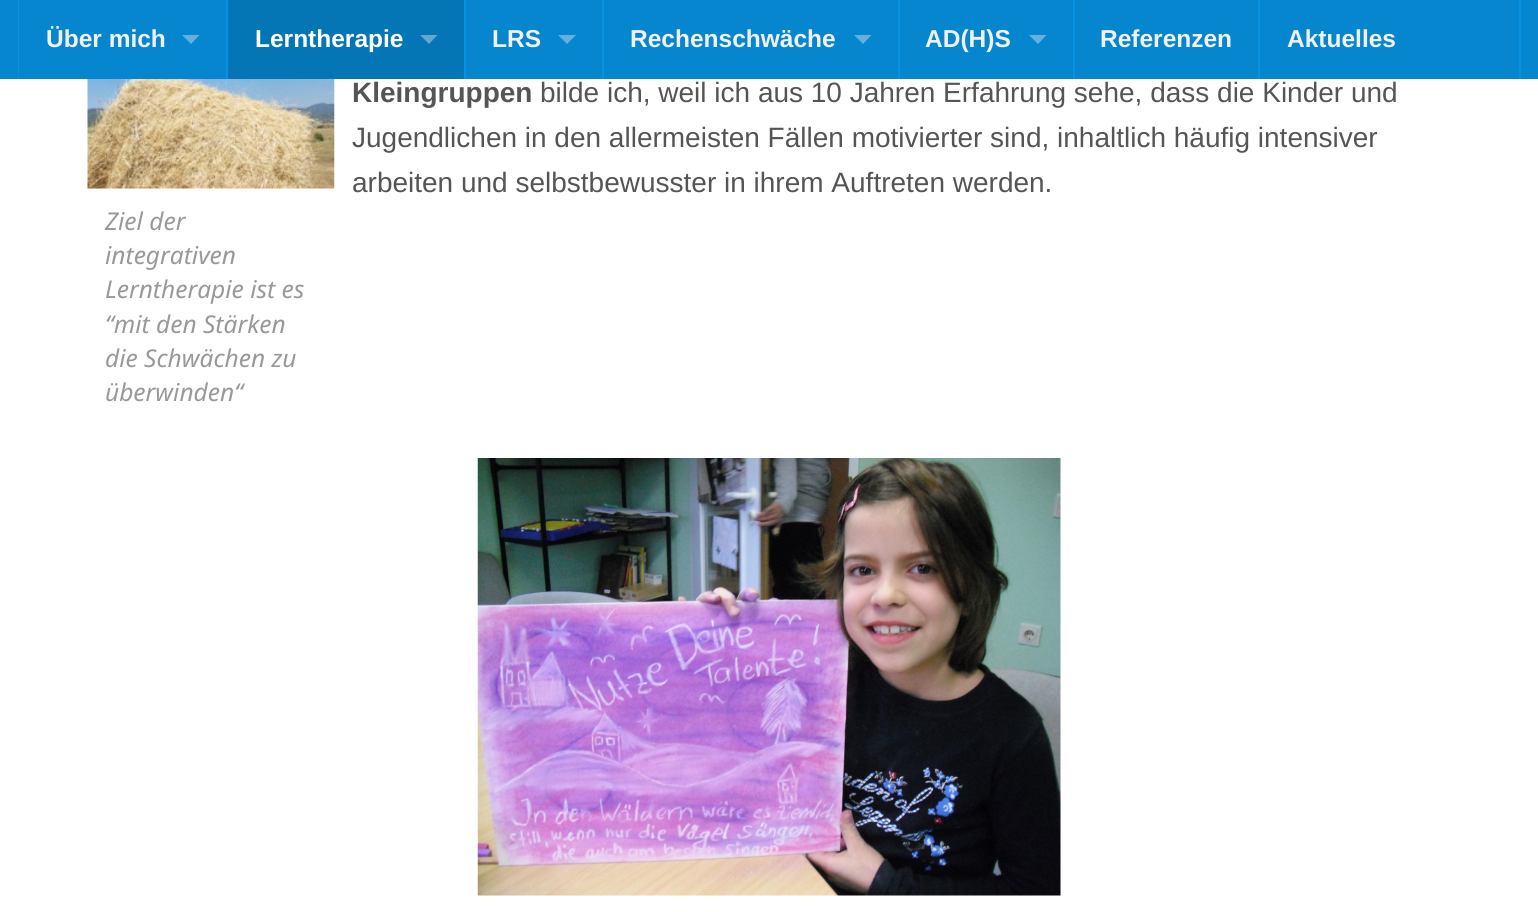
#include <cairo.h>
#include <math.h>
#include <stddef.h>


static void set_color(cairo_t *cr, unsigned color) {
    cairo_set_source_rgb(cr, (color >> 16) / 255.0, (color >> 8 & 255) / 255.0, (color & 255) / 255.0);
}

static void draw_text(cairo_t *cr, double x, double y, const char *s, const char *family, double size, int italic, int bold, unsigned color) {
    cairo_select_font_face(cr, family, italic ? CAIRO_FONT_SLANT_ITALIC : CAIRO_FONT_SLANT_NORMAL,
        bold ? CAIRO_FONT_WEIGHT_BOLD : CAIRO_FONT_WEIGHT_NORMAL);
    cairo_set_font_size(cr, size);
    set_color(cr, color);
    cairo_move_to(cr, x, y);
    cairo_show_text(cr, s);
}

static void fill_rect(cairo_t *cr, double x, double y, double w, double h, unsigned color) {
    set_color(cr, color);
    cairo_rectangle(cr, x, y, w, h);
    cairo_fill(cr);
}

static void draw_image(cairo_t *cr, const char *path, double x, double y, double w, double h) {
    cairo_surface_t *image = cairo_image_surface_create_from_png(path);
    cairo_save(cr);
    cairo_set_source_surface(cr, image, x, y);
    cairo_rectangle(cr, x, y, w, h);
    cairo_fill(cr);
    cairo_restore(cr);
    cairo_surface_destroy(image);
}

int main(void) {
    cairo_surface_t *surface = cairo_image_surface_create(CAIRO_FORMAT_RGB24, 1538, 912);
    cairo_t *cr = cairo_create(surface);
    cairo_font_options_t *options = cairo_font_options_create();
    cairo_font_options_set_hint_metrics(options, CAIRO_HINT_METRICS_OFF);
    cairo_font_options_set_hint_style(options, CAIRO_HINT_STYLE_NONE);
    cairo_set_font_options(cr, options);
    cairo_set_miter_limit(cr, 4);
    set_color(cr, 0xFFFFFF);
    cairo_paint(cr);
    fill_rect(cr, 0, 0, 1538, 79, 0x0686CF);
    fill_rect(cr, 18, 0, 1, 79, 0x0793E3);
    draw_text(cr, 46, 47, "Über mich", "Liberation Sans", 24.5, 0, 1, 0xF1F1F1);
    set_color(cr, 0x64B1DD);
    cairo_new_path(cr);
    cairo_move_to(cr, 182, 35);
    cairo_line_to(cr, 199.5, 35);
    cairo_line_to(cr, 191, 44);
    cairo_close_path(cr);
    cairo_fill(cr);
    fill_rect(cr, 226, 0, 2, 79, 0x0793E3);
    fill_rect(cr, 228, 0, 236, 79, 0x0576B5);
    draw_text(cr, 255, 47, "Lerntherapie", "Liberation Sans", 24.5, 0, 1, 0xFFFFFF);
    set_color(cr, 0x63A7CD);
    cairo_new_path(cr);
    cairo_move_to(cr, 420, 35);
    cairo_line_to(cr, 437.5, 35);
    cairo_line_to(cr, 429, 44);
    cairo_close_path(cr);
    cairo_fill(cr);
    fill_rect(cr, 464, 0, 2, 79, 0x0793E3);
    draw_text(cr, 492, 47, "LRS", "Liberation Sans", 24.5, 0, 1, 0xF1F1F1);
    set_color(cr, 0x64B1DD);
    cairo_new_path(cr);
    cairo_move_to(cr, 558, 35);
    cairo_line_to(cr, 576, 35);
    cairo_line_to(cr, 567, 44);
    cairo_close_path(cr);
    cairo_fill(cr);
    fill_rect(cr, 602, 0, 2, 79, 0x0793E3);
    draw_text(cr, 630, 47, "Rechenschwäche", "Liberation Sans", 24.5, 0, 1, 0xF1F1F1);
    set_color(cr, 0x64B1DD);
    cairo_new_path(cr);
    cairo_move_to(cr, 854, 35);
    cairo_line_to(cr, 871.5, 35);
    cairo_line_to(cr, 863, 44);
    cairo_close_path(cr);
    cairo_fill(cr);
    fill_rect(cr, 898, 0, 2, 79, 0x0793E3);
    draw_text(cr, 925, 47, "AD(H)S", "Liberation Sans", 24.5, 0, 1, 0xF1F1F1);
    set_color(cr, 0x64B1DD);
    cairo_new_path(cr);
    cairo_move_to(cr, 1029, 35);
    cairo_line_to(cr, 1046.5, 35);
    cairo_line_to(cr, 1038, 44);
    cairo_close_path(cr);
    cairo_fill(cr);
    fill_rect(cr, 1073, 0, 2, 79, 0x0793E3);
    draw_text(cr, 1100, 47, "Referenzen", "Liberation Sans", 24.5, 0, 1, 0xF1F1F1);
    fill_rect(cr, 1258, 0, 2, 79, 0x0793E3);
    draw_text(cr, 1287, 47, "Aktuelles", "Liberation Sans", 24.5, 0, 1, 0xF1F1F1);
    fill_rect(cr, 1519, 0, 2, 79, 0x0793E3);
    draw_text(cr, 352, 102, "Kleingruppen", "Liberation Sans", 28, 0, 1, 0x555555);
    draw_text(cr, 540, 102, "bilde ich, weil ich aus 10 Jahren Erfahrung sehe, dass die Kinder und", "Liberation Sans", 28, 0, 0, 0x555555);
    draw_text(cr, 352, 147, "Jugendlichen in den allermeisten Fällen motivierter sind, inhaltlich häufig intensiver", "Liberation Sans", 28, 0, 0, 0x555555);
    draw_text(cr, 352, 192, "arbeiten und selbstbewusster in ihrem Auftreten werden.", "Liberation Sans", 28, 0, 0, 0x555555);
    draw_image(cr, "assets/img1.png", 87, 79, 248, 110);
    draw_text(cr, 105, 230, "Ziel der", "Noto Sans", 24.5, 1, 0, 0x999999);
    draw_text(cr, 105, 264, "integrativen", "Noto Sans", 24.5, 1, 0, 0x999999);
    draw_text(cr, 105, 298, "Lerntherapie ist es", "Noto Sans", 24.5, 1, 0, 0x999999);
    draw_text(cr, 105, 333, "“mit den Stärken", "Noto Sans", 24.5, 1, 0, 0x999999);
    draw_text(cr, 105, 367, "die Schwächen zu", "Noto Sans", 24.5, 1, 0, 0x999999);
    draw_text(cr, 105, 401, "überwinden“", "Noto Sans", 24.5, 1, 0, 0x999999);
    draw_image(cr, "assets/img2.png", 477, 458, 584, 438);
    cairo_surface_write_to_png(surface, "output.png");
    cairo_font_options_destroy(options);
    cairo_destroy(cr);
    cairo_surface_destroy(surface);
    return 0;
}
